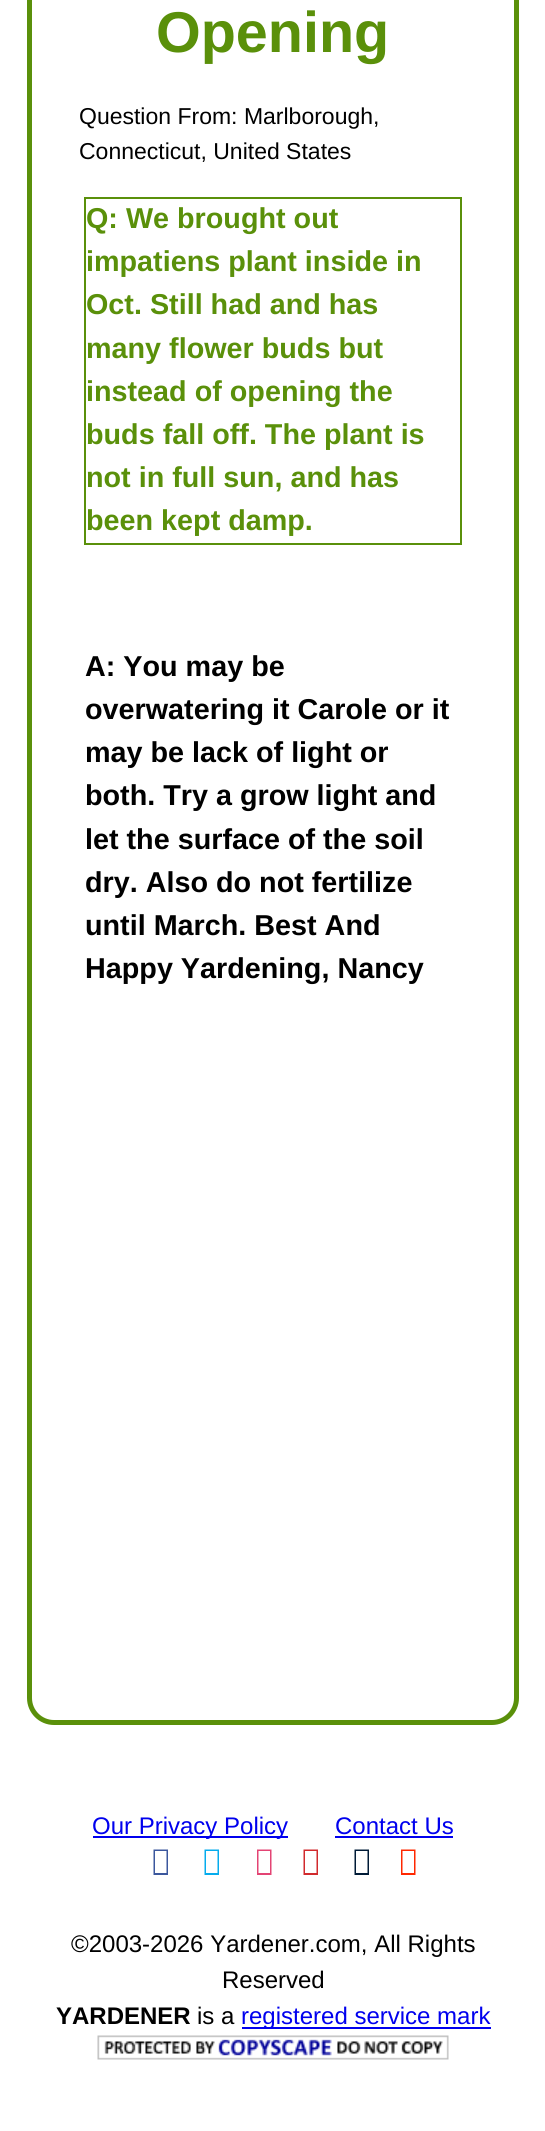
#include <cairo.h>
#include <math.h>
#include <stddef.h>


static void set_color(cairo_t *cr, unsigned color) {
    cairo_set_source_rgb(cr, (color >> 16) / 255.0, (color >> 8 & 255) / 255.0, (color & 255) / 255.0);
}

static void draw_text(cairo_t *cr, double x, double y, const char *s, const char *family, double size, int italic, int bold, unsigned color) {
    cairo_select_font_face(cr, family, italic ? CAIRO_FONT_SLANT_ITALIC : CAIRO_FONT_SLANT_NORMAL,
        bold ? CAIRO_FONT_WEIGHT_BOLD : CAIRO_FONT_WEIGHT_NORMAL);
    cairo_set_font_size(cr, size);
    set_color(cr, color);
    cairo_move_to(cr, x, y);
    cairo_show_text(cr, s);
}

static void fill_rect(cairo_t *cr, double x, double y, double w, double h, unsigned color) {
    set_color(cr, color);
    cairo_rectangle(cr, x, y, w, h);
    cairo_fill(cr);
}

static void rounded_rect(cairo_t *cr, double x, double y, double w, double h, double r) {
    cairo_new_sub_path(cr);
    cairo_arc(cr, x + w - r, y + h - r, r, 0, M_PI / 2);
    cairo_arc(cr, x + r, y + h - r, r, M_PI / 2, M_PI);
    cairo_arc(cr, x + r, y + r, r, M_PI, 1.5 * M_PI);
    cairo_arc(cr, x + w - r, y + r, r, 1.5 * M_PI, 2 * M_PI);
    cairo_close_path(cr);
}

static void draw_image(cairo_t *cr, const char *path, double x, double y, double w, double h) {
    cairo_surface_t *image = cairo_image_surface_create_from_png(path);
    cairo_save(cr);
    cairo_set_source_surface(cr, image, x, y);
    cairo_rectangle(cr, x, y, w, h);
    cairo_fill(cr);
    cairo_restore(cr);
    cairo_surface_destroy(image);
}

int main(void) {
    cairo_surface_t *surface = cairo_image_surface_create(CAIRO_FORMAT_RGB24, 545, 2131);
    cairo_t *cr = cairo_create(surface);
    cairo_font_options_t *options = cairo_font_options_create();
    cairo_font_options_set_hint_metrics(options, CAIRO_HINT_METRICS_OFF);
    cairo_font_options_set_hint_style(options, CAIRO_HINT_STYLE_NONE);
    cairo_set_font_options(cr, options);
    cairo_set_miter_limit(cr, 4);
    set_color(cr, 0xFFFFFF);
    cairo_paint(cr);
    rounded_rect(cr, 29.5, -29.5, 487, 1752, 24.5);
    set_color(cr, 0x5A900A);
    cairo_set_line_width(cr, 5);
    cairo_stroke(cr);
    draw_text(cr, 156, 52, "Opening", "Liberation Sans", 57.5, 0, 1, 0x5A900A);
    draw_text(cr, 79, 124, "Question From: Marlborough,", "Liberation Sans", 23, 0, 0, 0x000000);
    draw_text(cr, 79, 159, "Connecticut, United States", "Liberation Sans", 23, 0, 0, 0x000000);
    cairo_rectangle(cr, 85, 198, 376, 346);
    set_color(cr, 0x5A900A);
    cairo_set_line_width(cr, 2);
    cairo_stroke(cr);
    draw_text(cr, 86, 228, "Q: We brought out", "Liberation Sans", 28.75, 0, 1, 0x5A900A);
    draw_text(cr, 86, 271, "impatiens plant inside in", "Liberation Sans", 28.75, 0, 1, 0x5A900A);
    draw_text(cr, 86, 314, "Oct. Still had and has", "Liberation Sans", 28.75, 0, 1, 0x5A900A);
    draw_text(cr, 86, 358, "many flower buds but", "Liberation Sans", 28.75, 0, 1, 0x5A900A);
    draw_text(cr, 86, 401, "instead of opening the", "Liberation Sans", 28.75, 0, 1, 0x5A900A);
    draw_text(cr, 86, 444, "buds fall off. The plant is", "Liberation Sans", 28.75, 0, 1, 0x5A900A);
    draw_text(cr, 86, 487, "not in full sun, and has", "Liberation Sans", 28.75, 0, 1, 0x5A900A);
    draw_text(cr, 86, 530, "been kept damp.", "Liberation Sans", 28.75, 0, 1, 0x5A900A);
    draw_text(cr, 85, 676, "A: You may be", "Liberation Sans", 28.75, 0, 1, 0x000000);
    draw_text(cr, 85, 719, "overwatering it Carole or it", "Liberation Sans", 28.75, 0, 1, 0x000000);
    draw_text(cr, 85, 762, "may be lack of light or", "Liberation Sans", 28.75, 0, 1, 0x000000);
    draw_text(cr, 85, 805, "both. Try a grow light and", "Liberation Sans", 28.75, 0, 1, 0x000000);
    draw_text(cr, 85, 849, "let the surface of the soil", "Liberation Sans", 28.75, 0, 1, 0x000000);
    draw_text(cr, 85, 892, "dry. Also do not fertilize", "Liberation Sans", 28.75, 0, 1, 0x000000);
    draw_text(cr, 85, 935, "until March. Best And", "Liberation Sans", 28.75, 0, 1, 0x000000);
    draw_text(cr, 85, 978, "Happy Yardening, Nancy", "Liberation Sans", 28.75, 0, 1, 0x000000);
    fill_rect(cr, 93, 1836, 195, 2, 0x0000EE);
    draw_text(cr, 92, 1834, "Our Privacy Policy", "Liberation Sans", 24, 0, 0, 0x0000EE);
    draw_text(cr, 335, 1834, "Contact Us", "Liberation Sans", 24, 0, 0, 0x0000EE);
    fill_rect(cr, 335, 1836, 118, 2, 0x0000EE);
    set_color(cr, 0x3B579D);
    cairo_new_path(cr);
    cairo_move_to(cr, 153.5, 1875);
    cairo_line_to(cr, 153.5, 1849.5);
    cairo_line_to(cr, 168, 1849.5);
    cairo_line_to(cr, 168, 1875);
    cairo_close_path(cr);
    cairo_move_to(cr, 155, 1873);
    cairo_line_to(cr, 166.5, 1873);
    cairo_line_to(cr, 166.5, 1851);
    cairo_line_to(cr, 155, 1851);
    cairo_close_path(cr);
    cairo_fill(cr);
    set_color(cr, 0x05ACED);
    cairo_new_path(cr);
    cairo_move_to(cr, 204.5, 1875);
    cairo_line_to(cr, 204.5, 1849.5);
    cairo_line_to(cr, 219, 1849.5);
    cairo_line_to(cr, 219, 1875);
    cairo_close_path(cr);
    cairo_move_to(cr, 206, 1873);
    cairo_line_to(cr, 217.5, 1873);
    cairo_line_to(cr, 217.5, 1851);
    cairo_line_to(cr, 206, 1851);
    cairo_close_path(cr);
    cairo_fill(cr);
    set_color(cr, 0xE34474);
    cairo_new_path(cr);
    cairo_move_to(cr, 257, 1875);
    cairo_line_to(cr, 257, 1849.5);
    cairo_line_to(cr, 271.5, 1849.5);
    cairo_line_to(cr, 271.5, 1875);
    cairo_close_path(cr);
    cairo_move_to(cr, 258.5, 1873);
    cairo_line_to(cr, 270, 1873);
    cairo_line_to(cr, 270, 1851);
    cairo_line_to(cr, 258.5, 1851);
    cairo_close_path(cr);
    cairo_fill(cr);
    set_color(cr, 0xD12A2D);
    cairo_new_path(cr);
    cairo_move_to(cr, 303.5, 1875);
    cairo_line_to(cr, 303.5, 1849.5);
    cairo_line_to(cr, 318, 1849.5);
    cairo_line_to(cr, 318, 1875);
    cairo_close_path(cr);
    cairo_move_to(cr, 305, 1873);
    cairo_line_to(cr, 316.5, 1873);
    cairo_line_to(cr, 316.5, 1851);
    cairo_line_to(cr, 305, 1851);
    cairo_close_path(cr);
    cairo_fill(cr);
    set_color(cr, 0x001B37);
    cairo_new_path(cr);
    cairo_move_to(cr, 354.5, 1875);
    cairo_line_to(cr, 354.5, 1849.5);
    cairo_line_to(cr, 369, 1849.5);
    cairo_line_to(cr, 369, 1875);
    cairo_close_path(cr);
    cairo_move_to(cr, 356, 1873);
    cairo_line_to(cr, 367.5, 1873);
    cairo_line_to(cr, 367.5, 1851);
    cairo_line_to(cr, 356, 1851);
    cairo_close_path(cr);
    cairo_fill(cr);
    set_color(cr, 0xFF2700);
    cairo_new_path(cr);
    cairo_move_to(cr, 401, 1875);
    cairo_line_to(cr, 401, 1849.5);
    cairo_line_to(cr, 415.5, 1849.5);
    cairo_line_to(cr, 415.5, 1875);
    cairo_close_path(cr);
    cairo_move_to(cr, 402.5, 1873);
    cairo_line_to(cr, 414, 1873);
    cairo_line_to(cr, 414, 1851);
    cairo_line_to(cr, 402.5, 1851);
    cairo_close_path(cr);
    cairo_fill(cr);
    draw_text(cr, 71, 1952, "©2003-2026 Yardener.com, All Rights", "Liberation Sans", 24, 0, 0, 0x000000);
    draw_text(cr, 222, 1988, "Reserved", "Liberation Sans", 24, 0, 0, 0x000000);
    draw_text(cr, 56, 2024, "YARDENER", "Liberation Sans", 24, 0, 1, 0x000000);
    draw_text(cr, 197, 2024, "is a", "Liberation Sans", 24, 0, 0, 0x000000);
    fill_rect(cr, 242, 2027, 249, 2, 0x0000EE);
    draw_text(cr, 241, 2024, "registered service mark", "Liberation Sans", 24, 0, 0, 0x0000EE);
    draw_image(cr, "assets/img1.png", 97, 2035, 352, 25);
    cairo_surface_write_to_png(surface, "output.png");
    cairo_font_options_destroy(options);
    cairo_destroy(cr);
    cairo_surface_destroy(surface);
    return 0;
}
